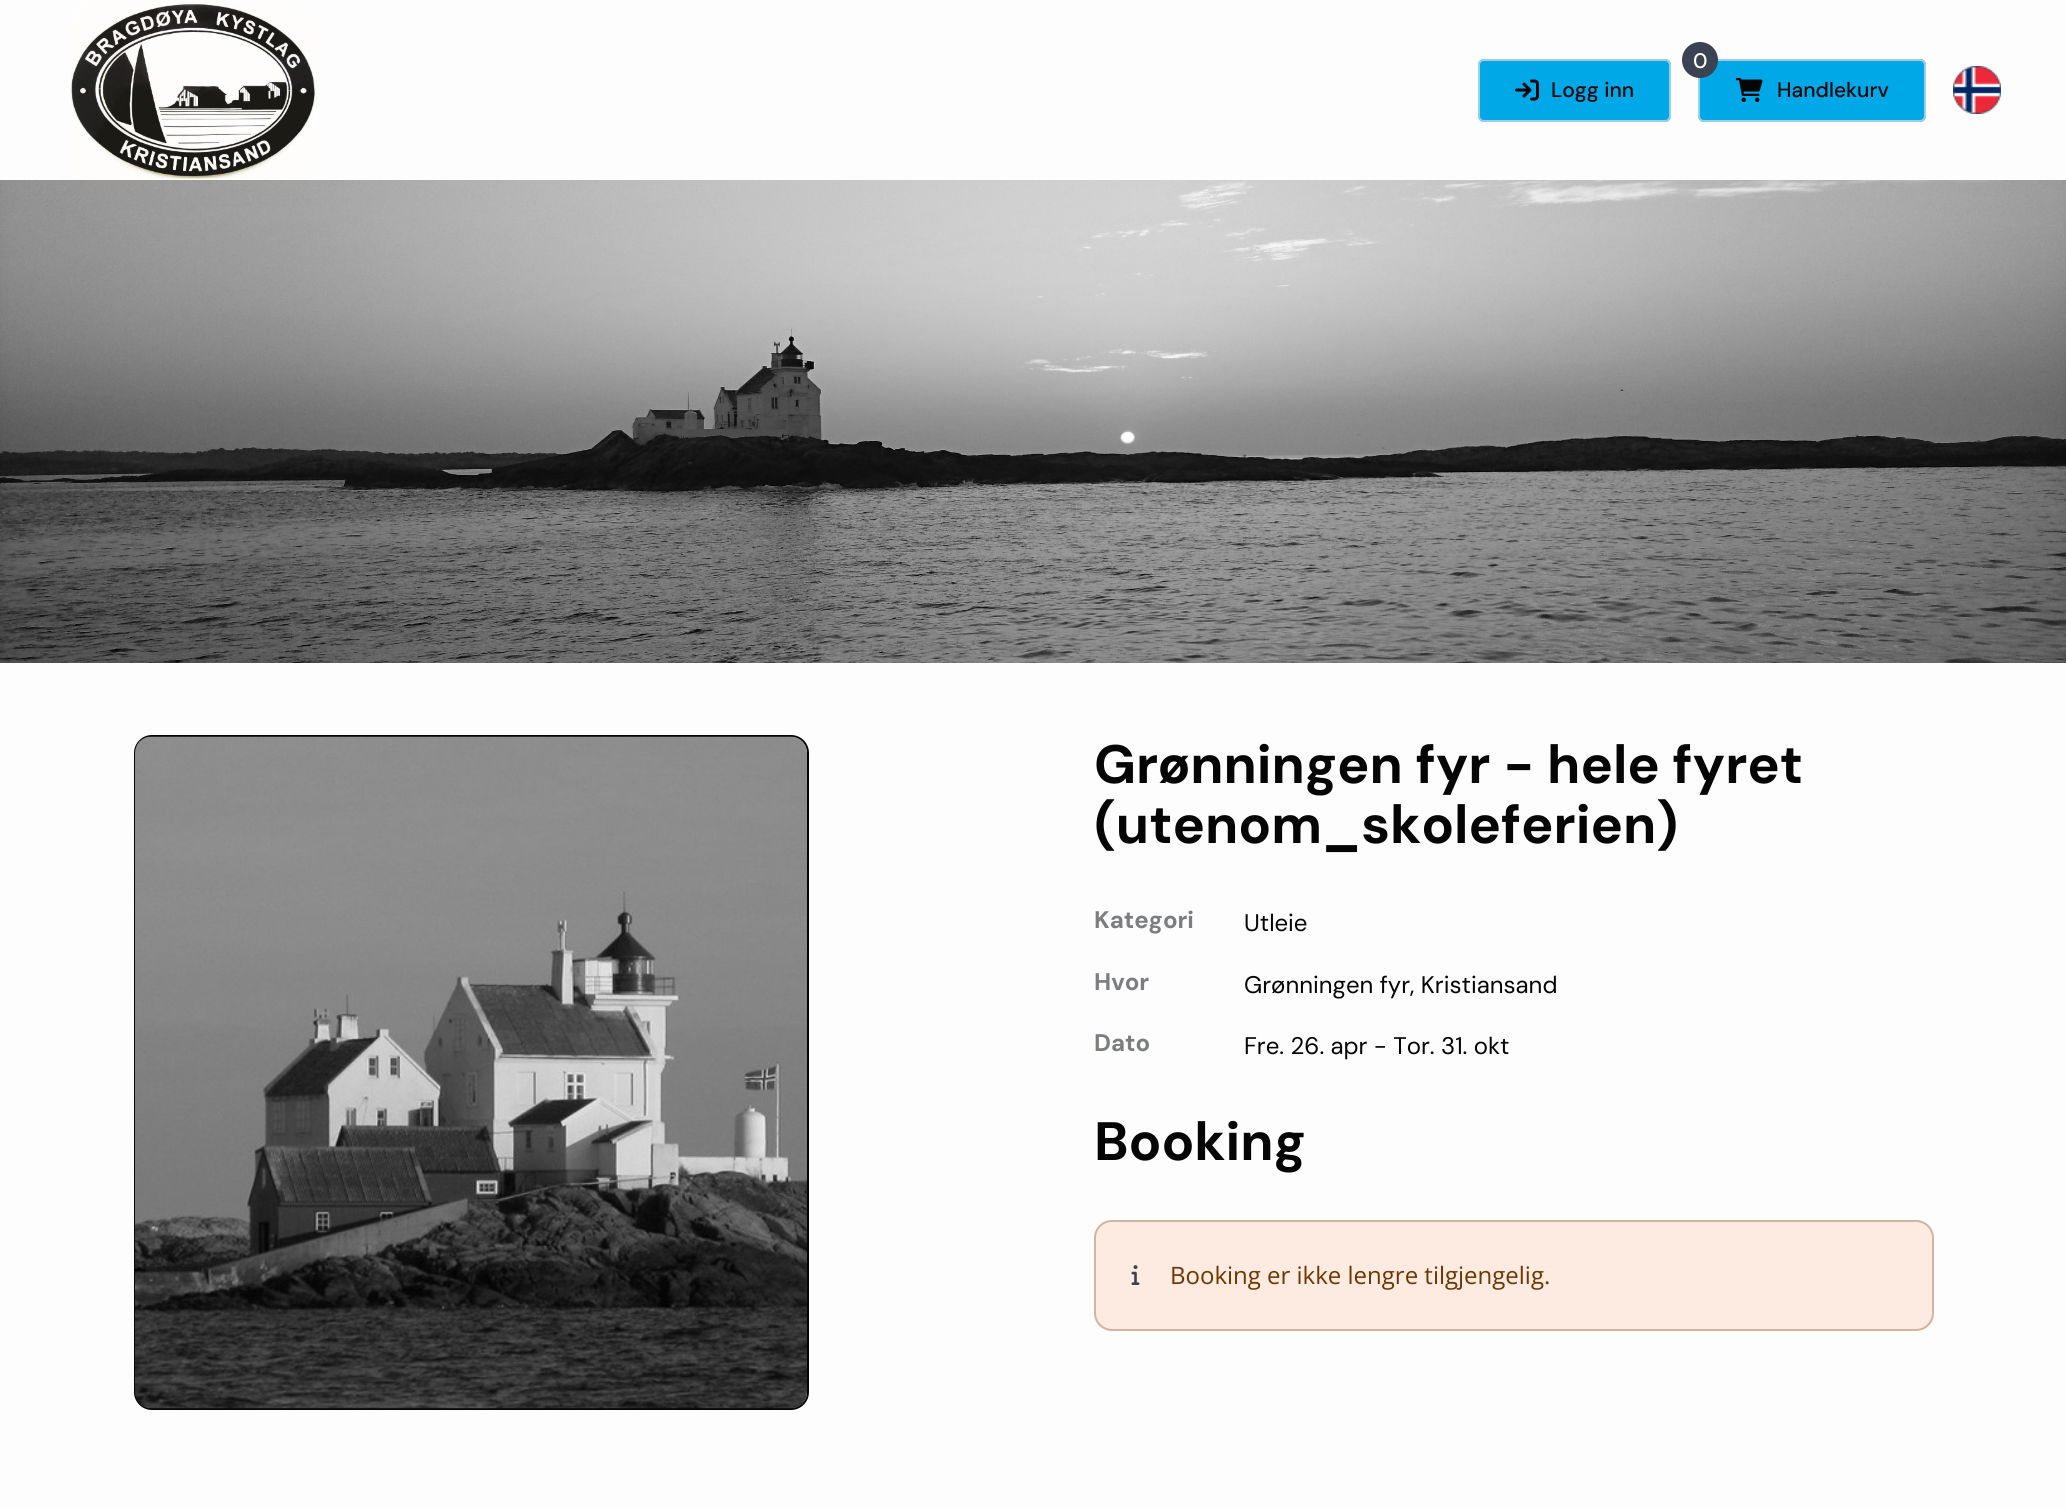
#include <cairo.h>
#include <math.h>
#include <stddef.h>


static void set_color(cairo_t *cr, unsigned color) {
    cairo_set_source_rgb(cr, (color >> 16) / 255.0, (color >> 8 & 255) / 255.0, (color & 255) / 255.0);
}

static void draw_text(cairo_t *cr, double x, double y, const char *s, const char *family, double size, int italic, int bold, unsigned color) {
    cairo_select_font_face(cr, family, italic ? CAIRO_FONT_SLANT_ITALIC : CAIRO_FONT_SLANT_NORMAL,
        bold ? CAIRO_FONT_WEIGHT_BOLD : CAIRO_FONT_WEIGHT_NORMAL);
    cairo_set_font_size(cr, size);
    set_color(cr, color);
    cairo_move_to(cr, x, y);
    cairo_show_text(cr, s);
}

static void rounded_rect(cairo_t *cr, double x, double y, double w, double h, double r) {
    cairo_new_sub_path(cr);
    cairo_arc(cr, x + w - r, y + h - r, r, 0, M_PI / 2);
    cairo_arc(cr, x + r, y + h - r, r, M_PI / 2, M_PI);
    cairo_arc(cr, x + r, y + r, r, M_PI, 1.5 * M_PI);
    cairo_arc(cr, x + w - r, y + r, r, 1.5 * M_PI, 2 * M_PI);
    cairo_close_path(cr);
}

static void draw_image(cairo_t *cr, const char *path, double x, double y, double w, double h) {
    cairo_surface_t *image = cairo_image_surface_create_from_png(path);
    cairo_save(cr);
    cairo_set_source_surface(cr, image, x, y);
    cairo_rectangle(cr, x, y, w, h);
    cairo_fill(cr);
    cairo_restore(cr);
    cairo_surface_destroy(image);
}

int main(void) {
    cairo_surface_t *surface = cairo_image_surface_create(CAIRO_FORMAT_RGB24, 2066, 1508);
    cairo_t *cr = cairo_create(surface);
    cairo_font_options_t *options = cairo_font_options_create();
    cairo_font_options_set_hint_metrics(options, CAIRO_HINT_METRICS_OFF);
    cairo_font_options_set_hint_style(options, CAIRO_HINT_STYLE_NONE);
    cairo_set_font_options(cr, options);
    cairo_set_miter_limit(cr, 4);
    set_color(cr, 0xFDFDFD);
    cairo_paint(cr);
    draw_image(cr, "assets/img1.png", 71, 0, 246, 180);
    set_color(cr, 0x00A8E8);
    rounded_rect(cr, 1478, 59, 193, 63, 6);
    cairo_fill(cr);
    rounded_rect(cr, 1479, 60, 191, 61, 5);
    cairo_set_source_rgba(cr, 0.769, 0.843, 0.886, 0.8);
    cairo_stroke(cr);
    draw_image(cr, "assets/img2.png", 1515, 79, 24, 22);
    draw_text(cr, 1551, 97, "Logg inn", "DM Sans Medium", 21, 0, 0, 0x050505);
    set_color(cr, 0x00A8E8);
    rounded_rect(cr, 1698, 59, 228, 63, 6);
    cairo_fill(cr);
    rounded_rect(cr, 1699, 60, 226, 61, 5);
    cairo_set_source_rgba(cr, 0.769, 0.843, 0.886, 0.8);
    cairo_stroke(cr);
    set_color(cr, 0x3B4252);
    cairo_arc(cr, 1700, 60, 18, 0, 2 * M_PI);
    cairo_fill(cr);
    draw_text(cr, 1693, 68, "0", "DM Sans Medium", 21, 0, 0, 0xFFFFFF);
    draw_image(cr, "assets/img3.png", 1736, 78, 27, 24);
    draw_text(cr, 1777, 97, "Handlekurv", "DM Sans Medium", 21, 0, 0, 0x050505);
    draw_image(cr, "assets/img4.png", 1953, 66, 48, 48);
    draw_image(cr, "assets/img5.png", 0, 180, 2066, 483);
    rounded_rect(cr, 135, 736, 673, 673, 17);
    cairo_stroke(cr);
    draw_image(cr, "assets/img6.png", 135, 736, 672, 673);
    draw_text(cr, 1094, 783, "Grønningen fyr - hele fyret", "DM Sans", 54, 0, 1, 0x050505);
    draw_text(cr, 1094, 843, "(utenom_skoleferien)", "DM Sans", 54, 0, 1, 0x050505);
    draw_text(cr, 1094, 928, "Kategori", "DM Sans", 24, 0, 1, 0x7C7D81);
    draw_text(cr, 1244, 931, "Utleie", "DM Sans", 24, 0, 0, 0x050505);
    draw_text(cr, 1094, 990, "Hvor", "DM Sans", 24, 0, 1, 0x7C7D81);
    draw_text(cr, 1244, 993, "Grønningen fyr, Kristiansand", "DM Sans", 24, 0, 0, 0x050505);
    draw_text(cr, 1094, 1051, "Dato", "DM Sans", 24, 0, 1, 0x7C7D81);
    draw_text(cr, 1244, 1054, "Fre. 26. apr - Tor. 31. okt", "DM Sans", 24, 0, 0, 0x050505);
    draw_text(cr, 1094, 1160, "Booking", "DM Sans", 54, 0, 1, 0x050505);
    set_color(cr, 0xFDEAE0);
    rounded_rect(cr, 1094, 1220, 840, 111, 18);
    cairo_fill(cr);
    draw_image(cr, "assets/img7.png", 1131, 1265, 9, 20);
    rounded_rect(cr, 1095, 1221, 838, 109, 17);
    cairo_set_source_rgba(cr, 0.431, 0.216, 0, 0.3);
    cairo_stroke(cr);
    draw_text(cr, 1170, 1284, "Booking er ikke lengre tilgjengelig.", "Open Sans", 24, 0, 0, 0x6E3700);
    cairo_surface_write_to_png(surface, "output.png");
    cairo_font_options_destroy(options);
    cairo_destroy(cr);
    cairo_surface_destroy(surface);
    return 0;
}
